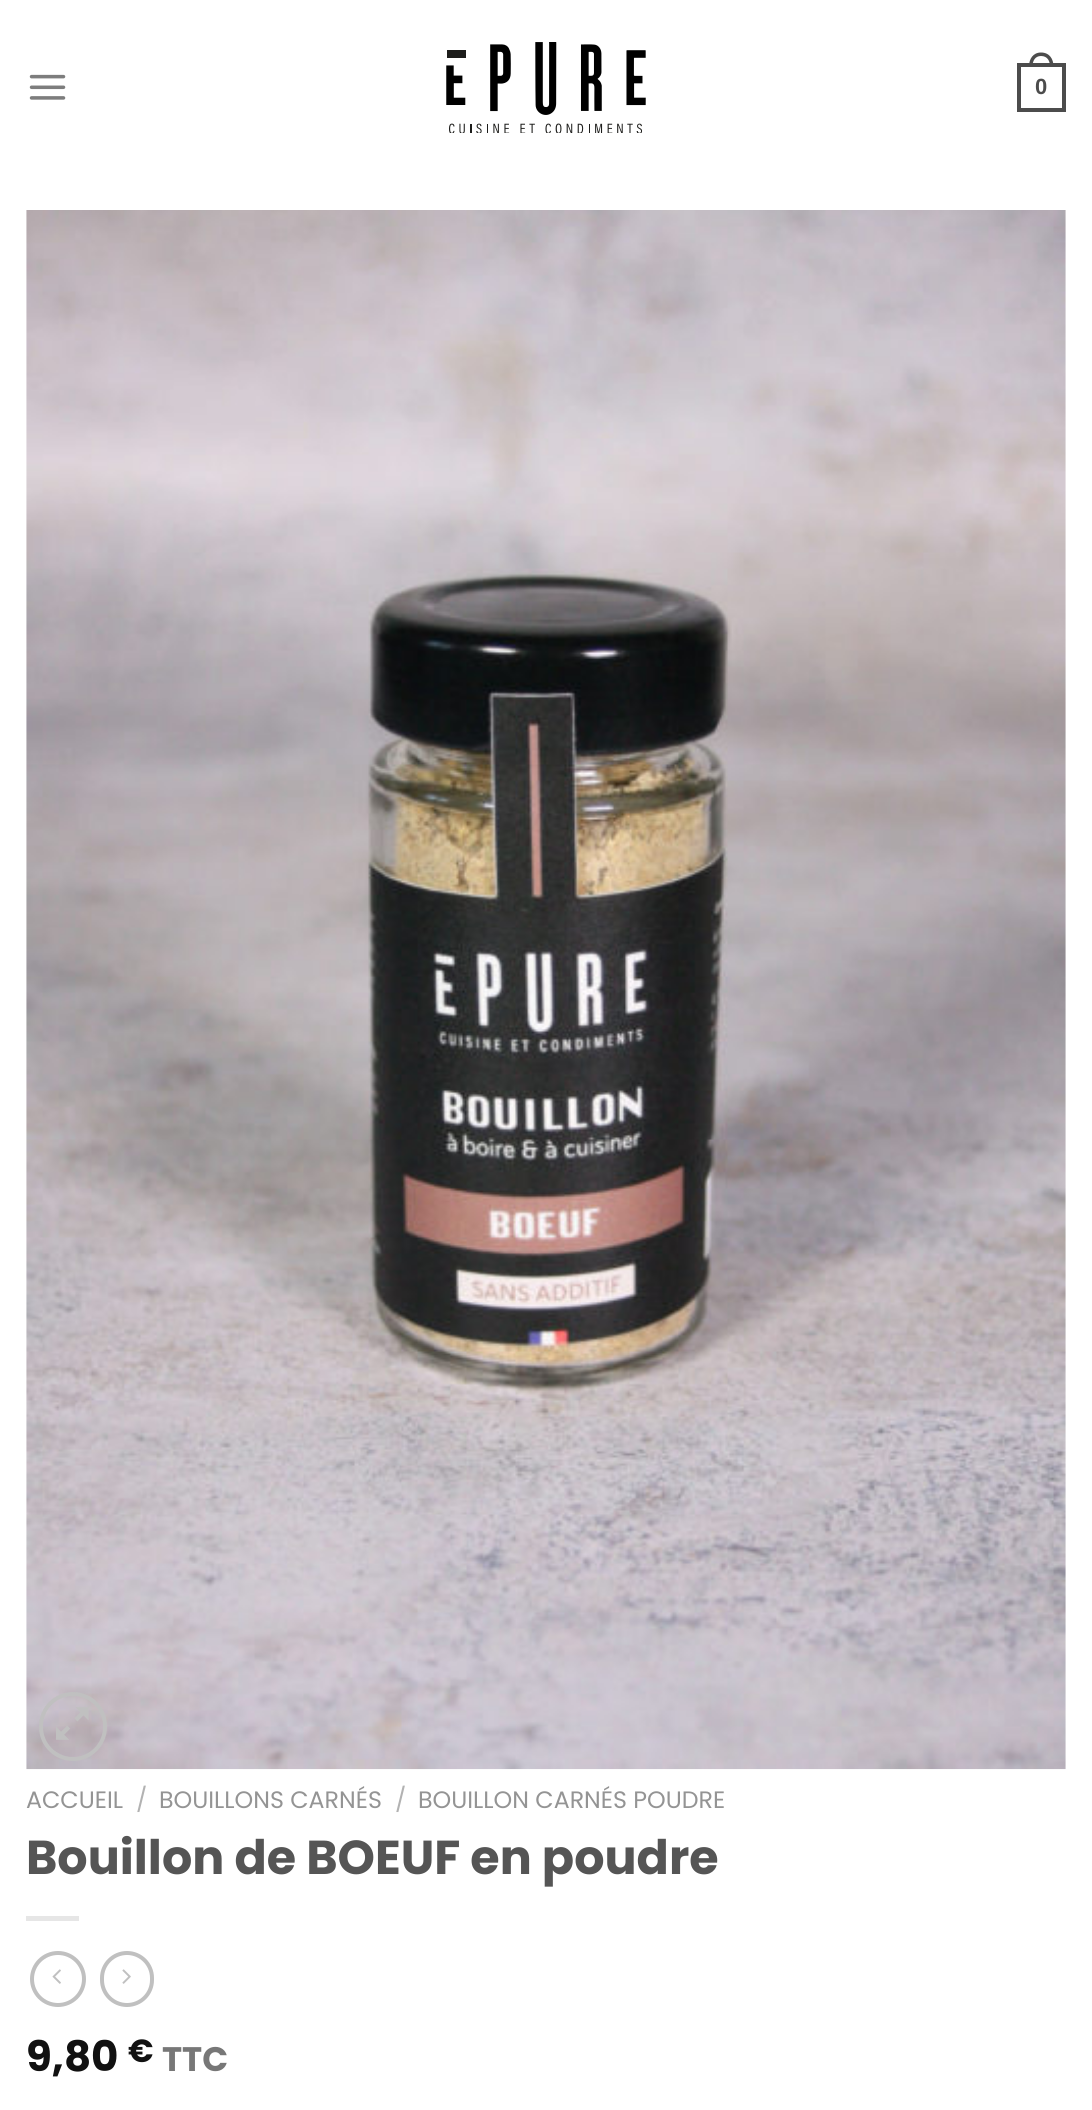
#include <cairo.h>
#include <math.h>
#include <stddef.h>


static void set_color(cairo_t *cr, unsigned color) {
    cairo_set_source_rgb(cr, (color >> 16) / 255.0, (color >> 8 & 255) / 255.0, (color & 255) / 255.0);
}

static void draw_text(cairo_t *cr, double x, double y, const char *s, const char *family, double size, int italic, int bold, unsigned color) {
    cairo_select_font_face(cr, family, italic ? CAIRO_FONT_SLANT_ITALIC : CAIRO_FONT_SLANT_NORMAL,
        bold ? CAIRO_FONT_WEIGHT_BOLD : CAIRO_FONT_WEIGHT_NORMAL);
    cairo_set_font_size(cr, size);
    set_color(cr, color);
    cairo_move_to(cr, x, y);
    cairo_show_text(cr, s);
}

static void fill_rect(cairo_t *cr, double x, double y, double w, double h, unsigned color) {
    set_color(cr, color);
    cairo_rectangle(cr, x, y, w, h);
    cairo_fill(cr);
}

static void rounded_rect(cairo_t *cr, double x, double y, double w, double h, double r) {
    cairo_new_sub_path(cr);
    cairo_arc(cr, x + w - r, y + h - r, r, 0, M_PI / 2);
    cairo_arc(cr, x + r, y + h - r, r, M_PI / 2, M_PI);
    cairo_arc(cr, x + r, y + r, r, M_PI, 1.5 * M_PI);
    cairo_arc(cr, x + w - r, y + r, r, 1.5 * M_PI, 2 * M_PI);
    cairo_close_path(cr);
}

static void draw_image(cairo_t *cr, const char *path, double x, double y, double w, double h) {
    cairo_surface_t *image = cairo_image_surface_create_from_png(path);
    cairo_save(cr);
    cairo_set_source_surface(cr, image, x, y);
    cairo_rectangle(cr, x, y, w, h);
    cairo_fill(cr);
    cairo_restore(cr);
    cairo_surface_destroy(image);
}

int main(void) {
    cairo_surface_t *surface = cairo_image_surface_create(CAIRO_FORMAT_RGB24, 1092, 2110);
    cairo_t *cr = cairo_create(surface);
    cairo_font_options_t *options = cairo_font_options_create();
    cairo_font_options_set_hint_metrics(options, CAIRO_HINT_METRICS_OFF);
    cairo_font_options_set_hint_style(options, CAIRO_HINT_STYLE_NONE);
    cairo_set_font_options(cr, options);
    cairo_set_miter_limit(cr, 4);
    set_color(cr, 0xFFFFFF);
    cairo_paint(cr);
    draw_image(cr, "assets/img1.png", 29, 74, 37, 26);
    draw_image(cr, "assets/img2.png", 446, 42, 200, 91);
    cairo_rectangle(cr, 1019, 65, 45, 45);
    set_color(cr, 0x4C4C4C);
    cairo_set_line_width(cr, 4);
    cairo_stroke(cr);
    cairo_set_fill_rule(cr, CAIRO_FILL_RULE_EVEN_ODD);
    cairo_new_path(cr);
    cairo_move_to(cr, 1041, 52.5);
    cairo_curve_to(cr, 1049.5, 52.5, 1053.5, 59, 1053.5, 66.5);
    cairo_line_to(cr, 1029, 66.5);
    cairo_curve_to(cr, 1029, 59, 1033, 52.5, 1041, 52.5);
    cairo_close_path(cr);
    cairo_move_to(cr, 1041, 56);
    cairo_curve_to(cr, 1047.5, 56, 1050, 61, 1050, 66.5);
    cairo_line_to(cr, 1032.5, 66.5);
    cairo_curve_to(cr, 1032.5, 61, 1035, 56, 1041, 56);
    cairo_close_path(cr);
    cairo_fill(cr);
    draw_text(cr, 1035, 94, "0", "Liberation Sans", 22, 0, 1, 0x4C4C4C);
    draw_image(cr, "assets/img3.png", 26, 210, 1040, 1560);
    rounded_rect(cr, 41, 1694, 64, 65, 32);
    set_color(cr, 0xC0C0C0);
    cairo_stroke(cr);
    draw_image(cr, "assets/img4.png", 56, 1707, 33, 33);
    draw_text(cr, 26, 1808, "ACCUEIL", "Poppins", 23.75, 0, 0, 0x949494);
    draw_text(cr, 136, 1808, "/", "Poppins", 23.75, 0, 0, 0xB2B2B2);
    draw_text(cr, 159, 1808, "BOUILLONS CARNÉS", "Poppins", 23.75, 0, 0, 0x949494);
    draw_text(cr, 395, 1808, "/", "Poppins", 23.75, 0, 0, 0xB2B2B2);
    draw_text(cr, 418, 1808, "BOUILLON CARNÉS POUDRE", "Poppins", 23.75, 0, 0, 0x949494);
    draw_text(cr, 26, 1874, "Bouillon de BOEUF en poudre", "Poppins", 47.6, 0, 1, 0x555555);
    fill_rect(cr, 26, 1916, 53, 5, 0xE6E6E6);
    cairo_new_path(cr);
    cairo_arc(cr, 58, 1979, 26, 0, 2 * M_PI);
    set_color(cr, 0xC0C0C0);
    cairo_stroke(cr);
    draw_image(cr, "assets/img5.png", 52, 1969, 9, 15);
    rounded_rect(cr, 102, 1953, 50, 52, 25);
    cairo_stroke(cr);
    draw_image(cr, "assets/img6.png", 122, 1969, 9, 15);
    draw_text(cr, 26, 2071, "9,80", "Poppins", 42, 0, 1, 0x111111);
    draw_text(cr, 128, 2062, "€", "Poppins", 32, 0, 1, 0x111111);
    draw_text(cr, 162, 2071, "TTC", "Poppins", 34, 0, 1, 0x777777);
    cairo_surface_write_to_png(surface, "output.png");
    cairo_font_options_destroy(options);
    cairo_destroy(cr);
    cairo_surface_destroy(surface);
    return 0;
}
